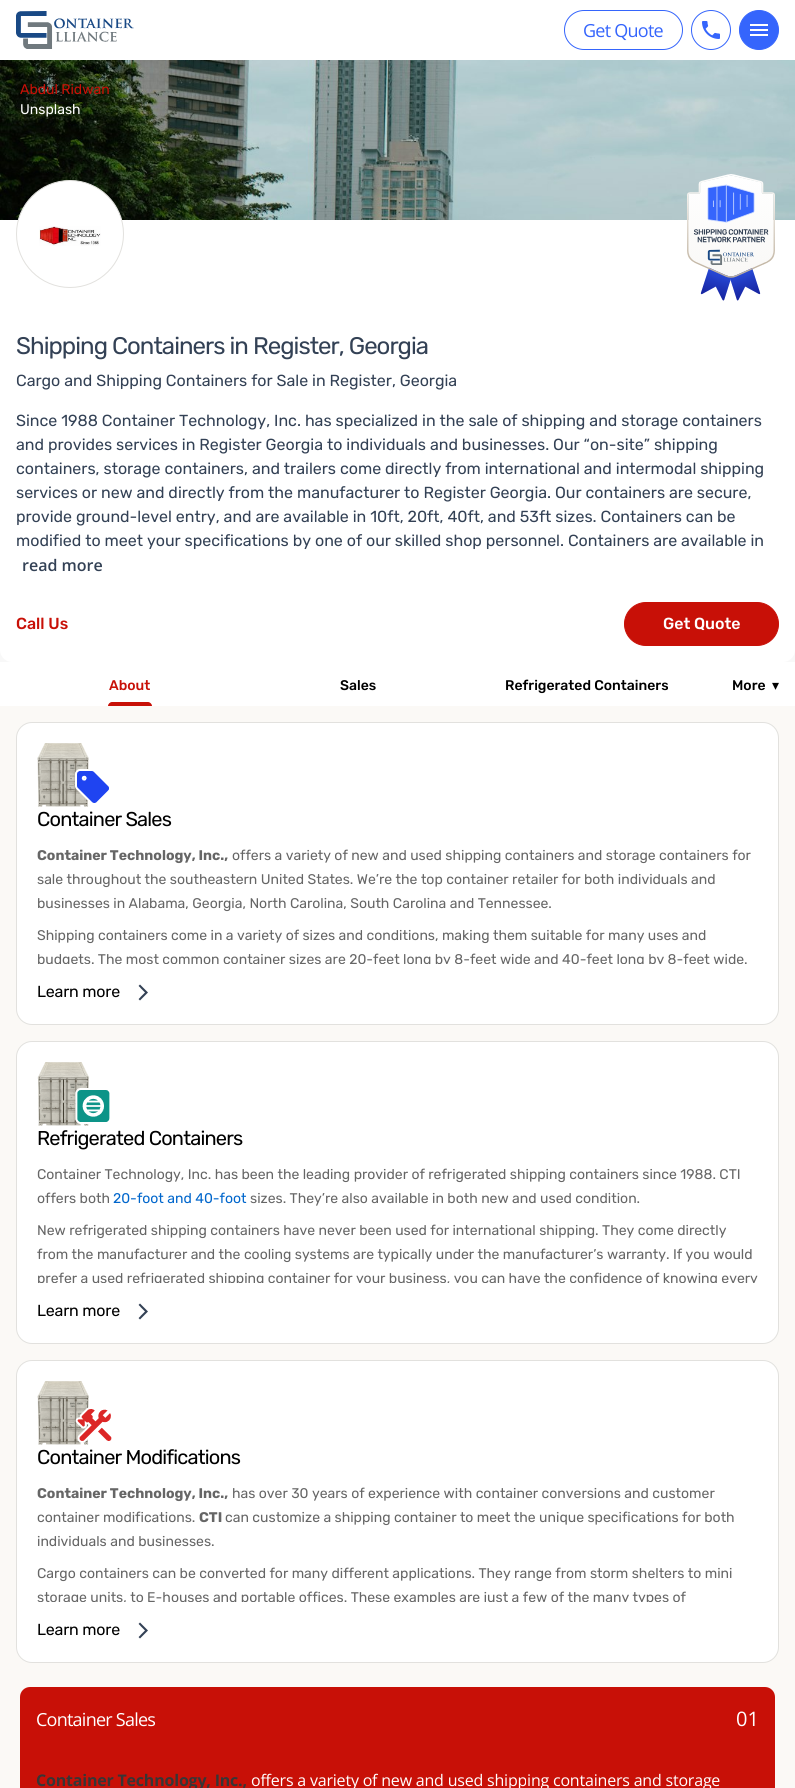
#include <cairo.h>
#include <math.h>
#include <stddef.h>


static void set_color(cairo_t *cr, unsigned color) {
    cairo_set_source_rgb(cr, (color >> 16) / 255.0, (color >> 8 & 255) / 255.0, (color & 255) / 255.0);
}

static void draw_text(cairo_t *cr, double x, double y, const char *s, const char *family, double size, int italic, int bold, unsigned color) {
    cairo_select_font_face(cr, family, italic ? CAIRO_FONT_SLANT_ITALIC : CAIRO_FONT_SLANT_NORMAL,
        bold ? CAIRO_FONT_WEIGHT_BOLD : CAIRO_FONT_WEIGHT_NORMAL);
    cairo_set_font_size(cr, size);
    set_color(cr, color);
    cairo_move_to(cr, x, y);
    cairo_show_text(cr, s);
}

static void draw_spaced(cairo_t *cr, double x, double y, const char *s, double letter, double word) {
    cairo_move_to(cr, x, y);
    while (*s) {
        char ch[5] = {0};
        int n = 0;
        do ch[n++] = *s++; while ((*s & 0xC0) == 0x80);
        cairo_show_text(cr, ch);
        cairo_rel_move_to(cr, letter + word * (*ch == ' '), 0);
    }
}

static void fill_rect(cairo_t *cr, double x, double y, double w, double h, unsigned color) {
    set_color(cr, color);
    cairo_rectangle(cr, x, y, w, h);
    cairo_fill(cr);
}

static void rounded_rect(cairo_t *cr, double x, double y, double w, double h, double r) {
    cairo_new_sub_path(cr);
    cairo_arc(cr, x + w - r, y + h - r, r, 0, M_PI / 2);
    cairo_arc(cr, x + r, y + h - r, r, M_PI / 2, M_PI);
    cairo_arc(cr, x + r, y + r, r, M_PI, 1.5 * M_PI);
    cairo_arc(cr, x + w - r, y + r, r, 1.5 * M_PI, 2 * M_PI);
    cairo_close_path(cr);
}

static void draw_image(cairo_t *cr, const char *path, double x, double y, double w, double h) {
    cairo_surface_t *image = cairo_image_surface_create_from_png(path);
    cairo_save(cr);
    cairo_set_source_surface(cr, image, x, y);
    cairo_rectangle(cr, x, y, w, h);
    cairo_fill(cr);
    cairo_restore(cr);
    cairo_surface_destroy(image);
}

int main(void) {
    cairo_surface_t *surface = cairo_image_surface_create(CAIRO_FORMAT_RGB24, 795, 1788);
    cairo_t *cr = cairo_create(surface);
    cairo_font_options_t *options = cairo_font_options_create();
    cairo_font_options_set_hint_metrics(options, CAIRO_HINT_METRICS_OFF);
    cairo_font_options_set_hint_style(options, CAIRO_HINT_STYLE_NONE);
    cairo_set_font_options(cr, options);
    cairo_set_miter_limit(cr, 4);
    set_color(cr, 0xFFFFFF);
    cairo_paint(cr);
    draw_image(cr, "assets/img1.png", 16, 11, 118, 38);
    rounded_rect(cr, 564.5, 10.5, 118, 39, 19.5);
    set_color(cr, 0x3565FC);
    cairo_set_line_width(cr, 1);
    cairo_stroke(cr);
    cairo_select_font_face(cr, "Open Sans", CAIRO_FONT_SLANT_NORMAL, CAIRO_FONT_WEIGHT_NORMAL);
    cairo_set_font_size(cr, 18);
    draw_spaced(cr, 583, 37, "Get Quote", -0.75, 0);
    cairo_new_path(cr);
    cairo_arc(cr, 711, 30, 19.5, 0, 2 * M_PI);
    cairo_stroke(cr);
    draw_image(cr, "assets/img2.png", 702, 21, 18, 18);
    cairo_arc(cr, 759, 30, 19.5, 0, 2 * M_PI);
    cairo_fill_preserve(cr);
    cairo_stroke(cr);
    draw_image(cr, "assets/img3.png", 750, 24, 18, 12);
    fill_rect(cr, 0, 650, 795, 12, 0xF8F8F8);
    draw_image(cr, "assets/img4.png", 0, 60, 795, 160);
    draw_text(cr, 20, 94, "Abdul Ridwan", "Rubik", 14, 0, 0, 0xC81007);
    draw_text(cr, 20, 114, "Unsplash", "Rubik", 14, 0, 0, 0xFFFFFF);
    cairo_new_path(cr);
    cairo_move_to(cr, 0, 220);
    cairo_line_to(cr, 795, 220);
    cairo_line_to(cr, 795, 650);
    cairo_curve_to(cr, 795, 656.5, 789.5, 662, 783, 662);
    cairo_line_to(cr, 12, 662);
    cairo_curve_to(cr, 5.5, 662, 0, 656.5, 0, 650);
    cairo_close_path(cr);
    cairo_fill(cr);
    cairo_arc(cr, 70, 234, 53.5, 0, 2 * M_PI);
    cairo_fill_preserve(cr);
    set_color(cr, 0xE2E1DE);
    cairo_stroke(cr);
    draw_image(cr, "assets/img5.png", 39, 226, 62, 20);
    draw_image(cr, "assets/img6.png", 687, 174, 88, 127);
    cairo_set_font_size(cr, 24);
    set_color(cr, 0x334155);
    draw_spaced(cr, 16, 354, "Shipping Containers in Register, Georgia", -0.95, 0);
    draw_text(cr, 16, 386, "Cargo and Shipping Containers for Sale in Register, Georgia", "Rubik", 16, 0, 0, 0x334155);
    draw_text(cr, 16, 426, "Since 1988 Container Technology, Inc. has specialized in the sale of shipping and storage containers", "Rubik", 16, 0, 0, 0x334155);
    draw_text(cr, 16, 450, "and provides services in Register Georgia to individuals and businesses. Our “on-site” shipping", "Rubik", 16, 0, 0, 0x334155);
    draw_text(cr, 16, 474, "containers, storage containers, and trailers come directly from international and intermodal shipping", "Rubik", 16, 0, 0, 0x334155);
    draw_text(cr, 16, 498, "services or new and directly from the manufacturer to Register Georgia. Our containers are secure,", "Rubik", 16, 0, 0, 0x334155);
    draw_text(cr, 16, 522, "provide ground-level entry, and are available in 10ft, 20ft, 40ft, and 53ft sizes. Containers can be", "Rubik", 16, 0, 0, 0x334155);
    draw_text(cr, 16, 546, "modified to meet your specifications by one of our skilled shop personnel. Containers are available in", "Rubik", 16, 0, 0, 0x334155);
    draw_text(cr, 22, 571, "read more", "Open Sans SemiBold", 16, 0, 0, 0x334155);
    draw_text(cr, 16, 629, "Call Us", "Rubik Medium", 16, 0, 0, 0xC81007);
    rounded_rect(cr, 624.5, 602.5, 154, 43, 21.5);
    cairo_fill_preserve(cr);
    cairo_stroke(cr);
    draw_text(cr, 663, 629, "Get Quote", "Rubik Medium", 16, 0, 0, 0xFFFFFF);
    draw_text(cr, 109, 690, "About", "Rubik Medium", 14, 0, 0, 0xC81007);
    cairo_new_path(cr);
    cairo_move_to(cr, 112, 702);
    cairo_line_to(cr, 148, 702);
    cairo_curve_to(cr, 150, 702, 152, 704, 152, 706);
    cairo_line_to(cr, 108, 706);
    cairo_curve_to(cr, 108, 704, 110, 702, 112, 702);
    cairo_close_path(cr);
    cairo_fill(cr);
    draw_text(cr, 340, 690, "Sales", "Rubik Medium", 14, 0, 0, 0x000000);
    draw_text(cr, 505, 690, "Refrigerated Containers", "Rubik Medium", 14, 0, 0, 0x000000);
    draw_text(cr, 732, 690, "More", "Rubik Medium", 14, 0, 0, 0x000000);
    draw_text(cr, 772, 690, "▾", "DejaVu Sans", 14, 0, 0, 0x000000);
    fill_rect(cr, 0, 706, 795, 1082, 0xFBF9F6);
    set_color(cr, 0xFFFFFF);
    rounded_rect(cr, 16.5, 722.5, 762, 302, 15.5);
    cairo_fill_preserve(cr);
    set_color(cr, 0xE2E1DE);
    cairo_stroke(cr);
    draw_image(cr, "assets/img7.png", 37, 743, 72, 64);
    cairo_select_font_face(cr, "Rubik", CAIRO_FONT_SLANT_NORMAL, CAIRO_FONT_WEIGHT_NORMAL);
    cairo_set_font_size(cr, 20);
    set_color(cr, 0x000000);
    draw_spaced(cr, 37, 826, "Container Sales", -0.8, 0);
    draw_text(cr, 37, 860, "Container Technology, Inc.,", "Rubik", 14, 0, 1, 0x666666);
    draw_text(cr, 232, 860, "offers a variety of new and used shipping containers and storage containers for", "Rubik", 14, 0, 0, 0x666666);
    draw_text(cr, 37, 884, "sale throughout the southeastern United States. We’re the top container retailer for both individuals and", "Rubik", 14, 0, 0, 0x666666);
    draw_text(cr, 37, 908, "businesses in Alabama, Georgia, North Carolina, South Carolina and Tennessee.", "Rubik", 14, 0, 0, 0x666666);
    draw_text(cr, 37, 940, "Shipping containers come in a variety of sizes and conditions, making them suitable for many uses and", "Rubik", 14, 0, 0, 0x666666);
    cairo_save(cr);
    cairo_rectangle(cr, 37, 844, 721, 120);
    cairo_clip(cr);
    draw_text(cr, 37, 964, "budgets. The most common container sizes are 20-feet long by 8-feet wide and 40-feet long by 8-feet wide.", "Rubik", 14, 0, 0, 0x666666);
    cairo_restore(cr);
    cairo_set_font_size(cr, 16);
    set_color(cr, 0x000000);
    draw_spaced(cr, 37, 997, "Learn more", -0.2, 0);
    draw_image(cr, "assets/img8.png", 138, 984, 10, 17);
    set_color(cr, 0xFFFFFF);
    rounded_rect(cr, 16.5, 1041.5, 762, 302, 15.5);
    cairo_fill_preserve(cr);
    set_color(cr, 0xE2E1DE);
    cairo_stroke(cr);
    draw_image(cr, "assets/img9.png", 37, 1062, 73, 64);
    cairo_set_font_size(cr, 20);
    set_color(cr, 0x000000);
    draw_spaced(cr, 37, 1145, "Refrigerated Containers", -0.8, 0);
    draw_text(cr, 37, 1179, "Container Technology, Inc. has been the leading provider of refrigerated shipping containers since 1988. CTI", "Rubik", 14, 0, 0, 0x666666);
    draw_text(cr, 37, 1203, "offers both", "Rubik", 14, 0, 0, 0x666666);
    draw_text(cr, 113, 1203, "20-foot and 40-foot", "Rubik", 14, 0, 0, 0x0066CC);
    draw_text(cr, 250, 1203, "sizes. They’re also available in both new and used condition.", "Rubik", 14, 0, 0, 0x666666);
    draw_text(cr, 37, 1235, "New refrigerated shipping containers have never been used for international shipping. They come directly", "Rubik", 14, 0, 0, 0x666666);
    draw_text(cr, 37, 1259, "from the manufacturer and the cooling systems are typically under the manufacturer’s warranty. If you would", "Rubik", 14, 0, 0, 0x666666);
    cairo_save(cr);
    cairo_rectangle(cr, 37, 1163, 721, 120);
    cairo_clip(cr);
    draw_text(cr, 37, 1283, "prefer a used refrigerated shipping container for your business, you can have the confidence of knowing every", "Rubik", 14, 0, 0, 0x666666);
    cairo_restore(cr);
    cairo_set_font_size(cr, 16);
    set_color(cr, 0x000000);
    draw_spaced(cr, 37, 1316, "Learn more", -0.2, 0);
    draw_image(cr, "assets/img8.png", 138, 1303, 10, 17);
    set_color(cr, 0xFFFFFF);
    rounded_rect(cr, 16.5, 1360.5, 762, 302, 15.5);
    cairo_fill_preserve(cr);
    set_color(cr, 0xE2E1DE);
    cairo_stroke(cr);
    draw_image(cr, "assets/img10.png", 37, 1381, 75, 64);
    cairo_set_font_size(cr, 20);
    set_color(cr, 0x000000);
    draw_spaced(cr, 37, 1464, "Container Modifications", -0.8, 0);
    draw_text(cr, 37, 1498, "Container Technology, Inc.,", "Rubik", 14, 0, 1, 0x666666);
    draw_text(cr, 232, 1498, "has over 30 years of experience with container conversions and customer", "Rubik", 14, 0, 0, 0x666666);
    draw_text(cr, 37, 1522, "container modifications.", "Rubik", 14, 0, 0, 0x666666);
    draw_text(cr, 199, 1522, "CTI", "Rubik", 14, 0, 1, 0x666666);
    draw_text(cr, 225, 1522, "can customize a shipping container to meet the unique specifications for both", "Rubik", 14, 0, 0, 0x666666);
    draw_text(cr, 37, 1546, "individuals and businesses.", "Rubik", 14, 0, 0, 0x666666);
    draw_text(cr, 37, 1578, "Cargo containers can be converted for many different applications. They range from storm shelters to mini", "Rubik", 14, 0, 0, 0x666666);
    cairo_save(cr);
    cairo_rectangle(cr, 37, 1482, 721, 120);
    cairo_clip(cr);
    draw_text(cr, 37, 1602, "storage units, to E-houses and portable offices. These examples are just a few of the many types of", "Rubik", 14, 0, 0, 0x666666);
    cairo_restore(cr);
    cairo_set_font_size(cr, 16);
    set_color(cr, 0x000000);
    draw_spaced(cr, 37, 1635, "Learn more", -0.2, 0);
    draw_image(cr, "assets/img8.png", 138, 1622, 10, 17);
    set_color(cr, 0xC81007);
    cairo_new_path(cr);
    cairo_move_to(cr, 30, 1687);
    cairo_line_to(cr, 765, 1687);
    cairo_curve_to(cr, 770.5, 1687, 775, 1691.5, 775, 1697);
    cairo_line_to(cr, 775, 1752);
    cairo_line_to(cr, 20, 1752);
    cairo_line_to(cr, 20, 1697);
    cairo_curve_to(cr, 20, 1691.5, 24.5, 1687, 30, 1687);
    cairo_close_path(cr);
    cairo_fill(cr);
    cairo_select_font_face(cr, "Open Sans", CAIRO_FONT_SLANT_NORMAL, CAIRO_FONT_WEIGHT_NORMAL);
    cairo_set_font_size(cr, 18);
    set_color(cr, 0xFFFFFF);
    draw_spaced(cr, 36, 1726, "Container Sales", -0.75, 0);
    draw_text(cr, 736, 1726, "01", "Open Sans", 20, 0, 0, 0xFFFFFF);
    fill_rect(cr, 20, 1752, 755, 36, 0xC81007);
    cairo_select_font_face(cr, "Open Sans", CAIRO_FONT_SLANT_NORMAL, CAIRO_FONT_WEIGHT_BOLD);
    cairo_set_font_size(cr, 16);
    set_color(cr, 0x363636);
    draw_spaced(cr, 36, 1786, "Container Technology, Inc.,", -0.2, 0);
    cairo_select_font_face(cr, "Open Sans", CAIRO_FONT_SLANT_NORMAL, CAIRO_FONT_WEIGHT_NORMAL);
    set_color(cr, 0xFFFFFF);
    draw_spaced(cr, 251, 1786, "offers a variety of new and used shipping containers and storage", -0.2, 0);
    cairo_surface_write_to_png(surface, "output.png");
    cairo_font_options_destroy(options);
    cairo_destroy(cr);
    cairo_surface_destroy(surface);
    return 0;
}
